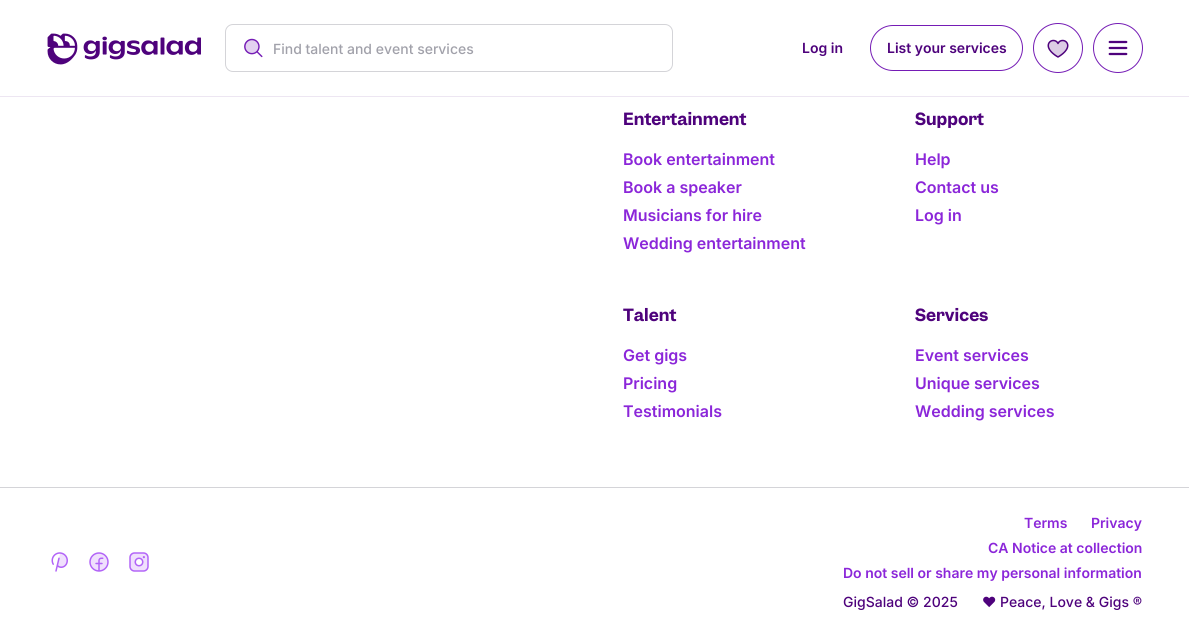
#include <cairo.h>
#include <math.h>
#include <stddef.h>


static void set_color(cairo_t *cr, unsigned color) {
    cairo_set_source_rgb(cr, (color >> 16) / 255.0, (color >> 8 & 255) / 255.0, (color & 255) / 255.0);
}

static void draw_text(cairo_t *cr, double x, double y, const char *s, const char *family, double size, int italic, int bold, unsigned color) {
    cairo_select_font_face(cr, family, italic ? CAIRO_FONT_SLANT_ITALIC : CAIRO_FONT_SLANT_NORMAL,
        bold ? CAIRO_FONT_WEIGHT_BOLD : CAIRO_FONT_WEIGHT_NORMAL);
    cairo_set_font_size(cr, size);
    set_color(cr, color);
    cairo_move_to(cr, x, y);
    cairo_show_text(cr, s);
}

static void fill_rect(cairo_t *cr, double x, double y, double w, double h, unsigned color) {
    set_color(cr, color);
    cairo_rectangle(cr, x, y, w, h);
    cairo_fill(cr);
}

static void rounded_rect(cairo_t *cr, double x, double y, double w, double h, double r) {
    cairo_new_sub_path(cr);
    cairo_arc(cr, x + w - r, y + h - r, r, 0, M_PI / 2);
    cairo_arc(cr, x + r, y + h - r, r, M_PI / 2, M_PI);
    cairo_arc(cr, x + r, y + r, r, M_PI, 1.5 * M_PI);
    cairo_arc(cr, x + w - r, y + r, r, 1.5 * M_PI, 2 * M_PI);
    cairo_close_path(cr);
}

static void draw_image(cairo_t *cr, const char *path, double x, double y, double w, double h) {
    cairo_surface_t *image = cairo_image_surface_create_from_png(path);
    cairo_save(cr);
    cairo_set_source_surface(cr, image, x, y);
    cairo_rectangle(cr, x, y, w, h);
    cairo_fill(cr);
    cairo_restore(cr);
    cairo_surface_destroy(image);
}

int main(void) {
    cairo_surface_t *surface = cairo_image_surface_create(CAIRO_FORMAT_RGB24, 1189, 636);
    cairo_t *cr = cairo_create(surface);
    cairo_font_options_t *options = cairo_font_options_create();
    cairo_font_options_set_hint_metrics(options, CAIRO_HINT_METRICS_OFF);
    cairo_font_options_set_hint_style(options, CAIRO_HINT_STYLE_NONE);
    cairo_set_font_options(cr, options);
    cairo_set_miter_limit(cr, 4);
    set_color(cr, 0xFFFFFF);
    cairo_paint(cr);
    cairo_rectangle(cr, -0.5, -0.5, 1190, 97);
    cairo_set_source_rgba(cr, 0.306, 0.008, 0.486, 0.1);
    cairo_set_line_width(cr, 1);
    cairo_stroke(cr);
    draw_image(cr, "assets/img1.png", 47, 33, 31, 32);
    draw_image(cr, "assets/img2.png", 83, 36, 118, 24);
    rounded_rect(cr, 225.5, 24.5, 447, 47, 7.5);
    set_color(cr, 0xD4D4D8);
    cairo_stroke(cr);
    draw_image(cr, "assets/img3.png", 244, 38, 19, 20);
    draw_text(cr, 273, 54, "Find talent and event services", "Inter Medium", 14, 0, 0, 0xA1A1AA);
    draw_text(cr, 802, 53, "Log in", "Inter SemiBold", 14, 0, 0, 0x4E027C);
    rounded_rect(cr, 870.5, 25.5, 152, 45, 22.5);
    set_color(cr, 0x751CB5);
    cairo_stroke(cr);
    draw_text(cr, 887, 53, "List your services", "Inter SemiBold", 14, 0, 0, 0x4E027C);
    cairo_new_path(cr);
    cairo_arc(cr, 1058, 48, 24.5, 0, 2 * M_PI);
    set_color(cr, 0x751CB5);
    cairo_stroke(cr);
    draw_image(cr, "assets/img4.png", 1047, 39, 22, 19);
    cairo_arc(cr, 1118, 48, 24.5, 0, 2 * M_PI);
    cairo_stroke(cr);
    draw_image(cr, "assets/img5.png", 1108, 40, 20, 16);
    draw_text(cr, 623, 125, "Entertainment", "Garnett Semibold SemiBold", 16, 0, 0, 0x4E027C);
    draw_text(cr, 623, 165, "Book entertainment", "Inter SemiBold", 16, 0, 0, 0x8B26D9);
    draw_text(cr, 623, 193, "Book a speaker", "Inter SemiBold", 16, 0, 0, 0x8B26D9);
    draw_text(cr, 623, 221, "Musicians for hire", "Inter SemiBold", 16, 0, 0, 0x8B26D9);
    draw_text(cr, 623, 249, "Wedding entertainment", "Inter SemiBold", 16, 0, 0, 0x8B26D9);
    draw_text(cr, 915, 125, "Support", "Garnett Semibold SemiBold", 16, 0, 0, 0x4E027C);
    draw_text(cr, 915, 165, "Help", "Inter SemiBold", 16, 0, 0, 0x8B26D9);
    draw_text(cr, 915, 193, "Contact us", "Inter SemiBold", 16, 0, 0, 0x8B26D9);
    draw_text(cr, 915, 221, "Log in", "Inter SemiBold", 16, 0, 0, 0x8B26D9);
    draw_text(cr, 623, 321, "Talent", "Garnett Semibold SemiBold", 16, 0, 0, 0x4E027C);
    draw_text(cr, 623, 361, "Get gigs", "Inter SemiBold", 16, 0, 0, 0x8B26D9);
    draw_text(cr, 623, 389, "Pricing", "Inter SemiBold", 16, 0, 0, 0x8B26D9);
    draw_text(cr, 623, 417, "Testimonials", "Inter SemiBold", 16, 0, 0, 0x8B26D9);
    draw_text(cr, 915, 321, "Services", "Garnett Semibold SemiBold", 16, 0, 0, 0x4E027C);
    draw_text(cr, 915, 361, "Event services", "Inter SemiBold", 16, 0, 0, 0x8B26D9);
    draw_text(cr, 915, 389, "Unique services", "Inter SemiBold", 16, 0, 0, 0x8B26D9);
    draw_text(cr, 915, 417, "Wedding services", "Inter SemiBold", 16, 0, 0, 0x8B26D9);
    fill_rect(cr, 0, 487, 1189, 1, 0xD4D4D8);
    draw_image(cr, "assets/img6.png", 51, 552, 17, 20);
    draw_image(cr, "assets/img7.png", 89, 552, 20, 20);
    draw_image(cr, "assets/img8.png", 129, 552, 20, 20);
    draw_text(cr, 1024, 528, "Terms", "Inter SemiBold", 14, 0, 0, 0x8B26D9);
    draw_text(cr, 1091, 528, "Privacy", "Inter SemiBold", 14, 0, 0, 0x8B26D9);
    draw_text(cr, 988, 553, "CA Notice at collection", "Inter SemiBold", 14, 0, 0, 0x8B26D9);
    draw_text(cr, 843, 578, "Do not sell or share my personal information", "Inter SemiBold", 14, 0, 0, 0x8B26D9);
    draw_text(cr, 843, 607, "GigSalad © 2025", "Inter Medium", 14, 0, 0, 0x4E027C);
    draw_text(cr, 982, 607, "♥ Peace, Love & Gigs ®", "Inter Medium", 14, 0, 0, 0x4E027C);
    cairo_surface_write_to_png(surface, "output.png");
    cairo_font_options_destroy(options);
    cairo_destroy(cr);
    cairo_surface_destroy(surface);
    return 0;
}
